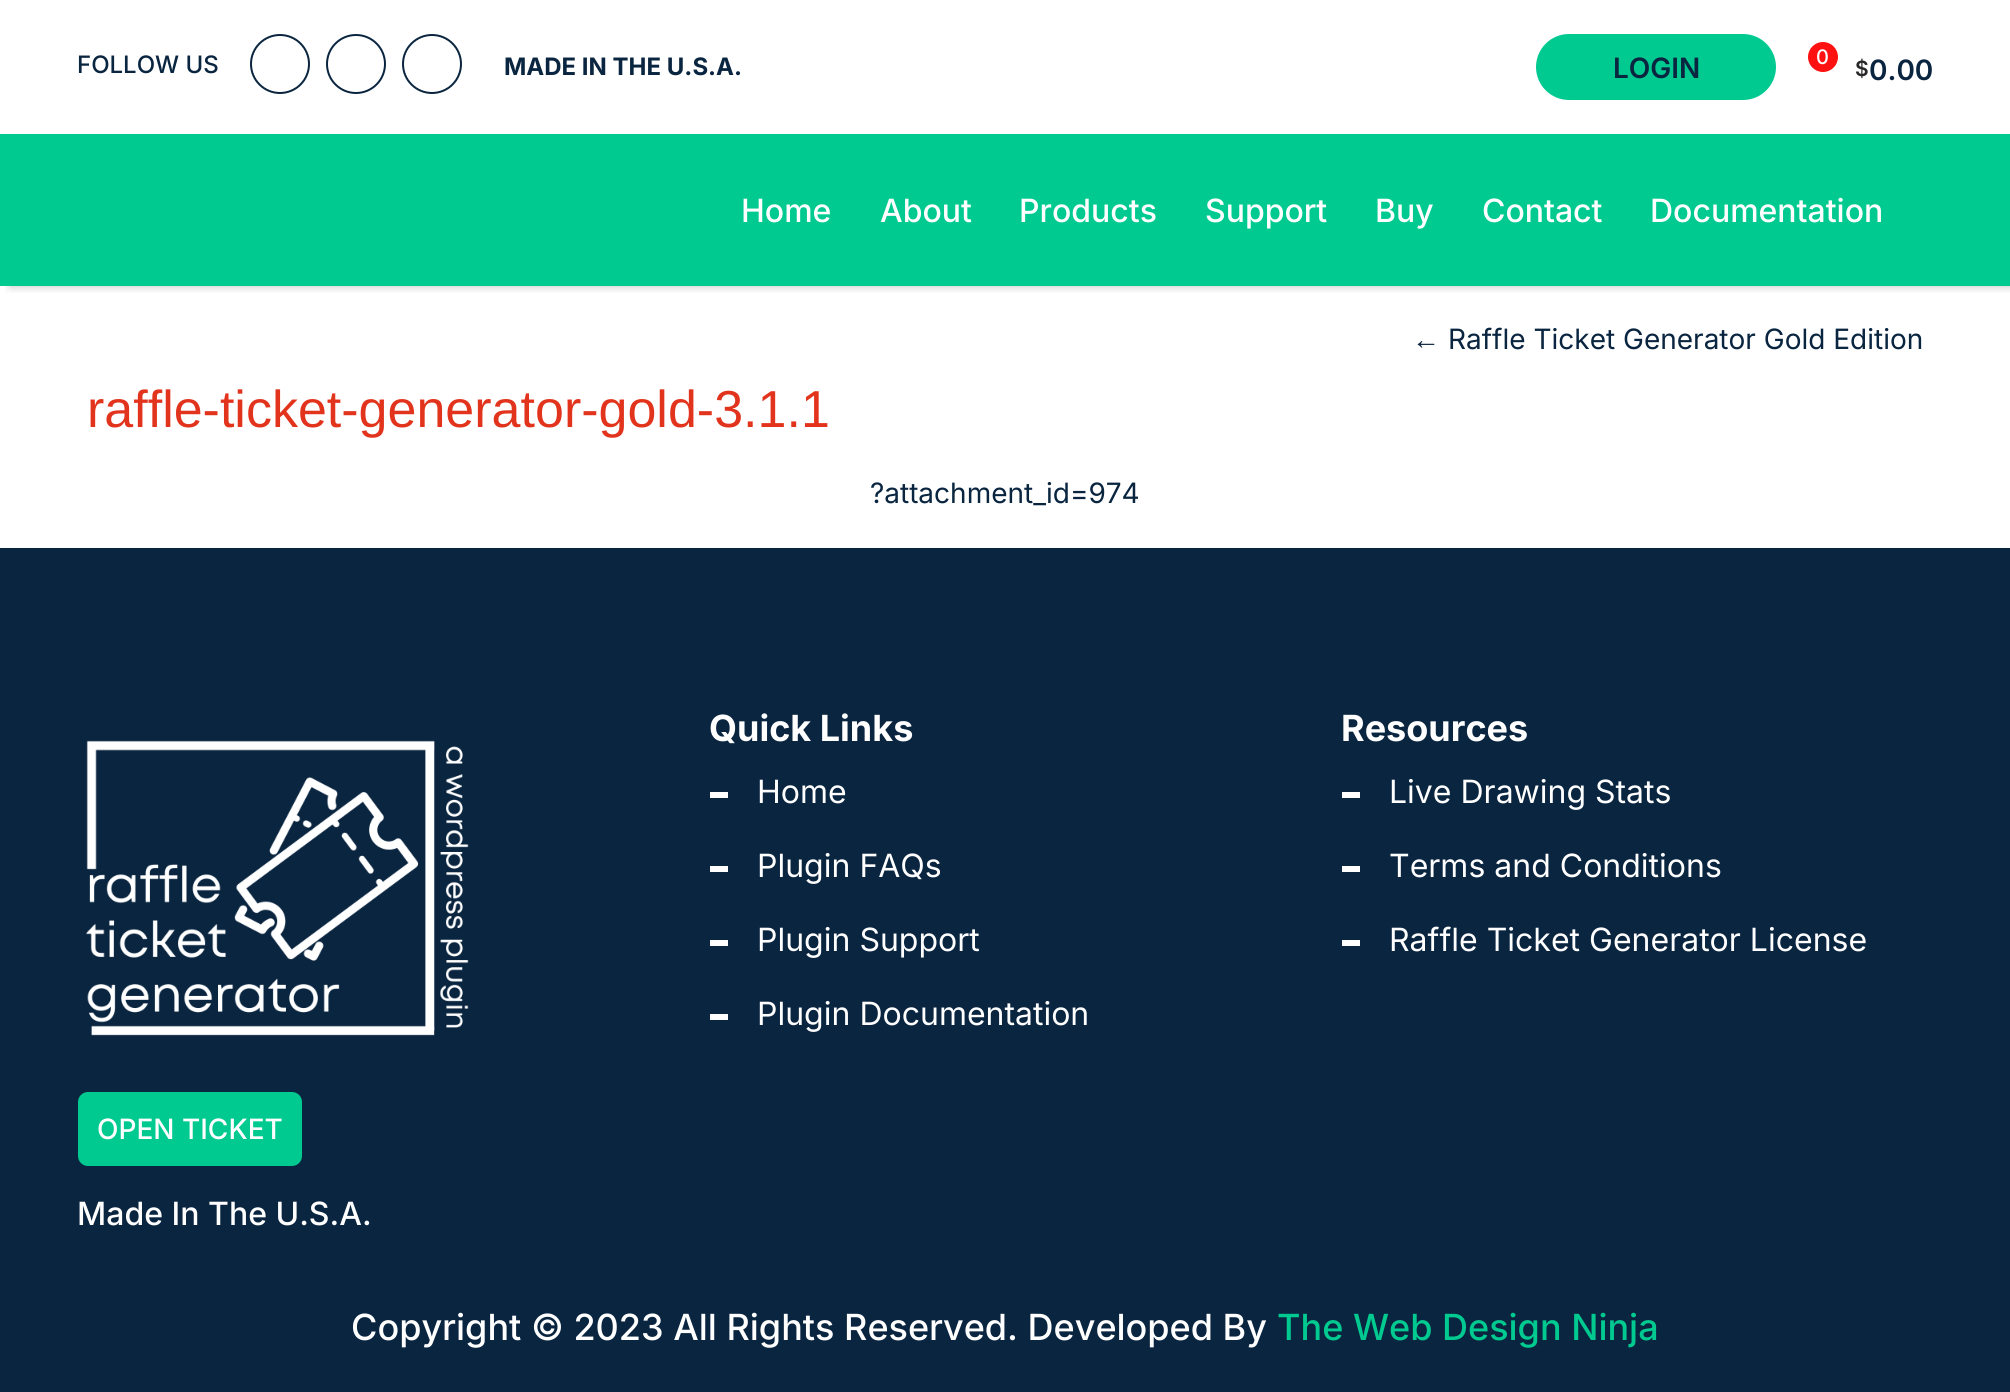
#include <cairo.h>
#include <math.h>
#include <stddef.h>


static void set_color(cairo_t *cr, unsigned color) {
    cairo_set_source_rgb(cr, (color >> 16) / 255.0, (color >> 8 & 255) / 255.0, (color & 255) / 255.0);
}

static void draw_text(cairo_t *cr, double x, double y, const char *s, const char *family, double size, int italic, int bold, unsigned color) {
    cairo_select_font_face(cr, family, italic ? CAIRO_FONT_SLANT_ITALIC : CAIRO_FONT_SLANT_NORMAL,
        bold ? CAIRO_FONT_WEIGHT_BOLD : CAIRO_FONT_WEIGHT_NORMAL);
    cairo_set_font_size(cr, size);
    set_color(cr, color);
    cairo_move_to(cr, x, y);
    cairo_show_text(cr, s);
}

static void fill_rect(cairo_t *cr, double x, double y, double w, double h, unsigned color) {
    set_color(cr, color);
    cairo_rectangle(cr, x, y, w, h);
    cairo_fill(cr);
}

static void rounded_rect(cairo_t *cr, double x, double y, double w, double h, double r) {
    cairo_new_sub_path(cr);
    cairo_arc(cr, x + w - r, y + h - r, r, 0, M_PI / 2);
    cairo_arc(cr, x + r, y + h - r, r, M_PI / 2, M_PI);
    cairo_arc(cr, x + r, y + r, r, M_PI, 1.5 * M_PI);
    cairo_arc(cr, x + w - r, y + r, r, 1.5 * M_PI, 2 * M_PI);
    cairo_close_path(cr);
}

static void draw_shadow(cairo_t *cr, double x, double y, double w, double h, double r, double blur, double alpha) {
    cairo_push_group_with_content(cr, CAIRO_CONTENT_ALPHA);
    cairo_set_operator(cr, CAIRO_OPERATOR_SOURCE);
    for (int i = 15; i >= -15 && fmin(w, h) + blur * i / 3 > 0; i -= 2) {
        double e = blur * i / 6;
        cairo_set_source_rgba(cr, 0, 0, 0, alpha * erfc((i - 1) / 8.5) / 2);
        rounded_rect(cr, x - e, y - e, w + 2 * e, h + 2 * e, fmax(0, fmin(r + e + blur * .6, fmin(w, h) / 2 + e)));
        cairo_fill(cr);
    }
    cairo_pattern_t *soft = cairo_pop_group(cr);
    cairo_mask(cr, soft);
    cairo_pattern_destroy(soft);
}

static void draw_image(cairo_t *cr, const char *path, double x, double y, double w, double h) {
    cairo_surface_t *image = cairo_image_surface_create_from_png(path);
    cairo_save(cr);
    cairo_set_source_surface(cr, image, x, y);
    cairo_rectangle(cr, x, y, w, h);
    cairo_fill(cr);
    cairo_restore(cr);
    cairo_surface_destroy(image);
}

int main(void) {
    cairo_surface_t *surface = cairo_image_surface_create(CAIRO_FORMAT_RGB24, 2010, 1392);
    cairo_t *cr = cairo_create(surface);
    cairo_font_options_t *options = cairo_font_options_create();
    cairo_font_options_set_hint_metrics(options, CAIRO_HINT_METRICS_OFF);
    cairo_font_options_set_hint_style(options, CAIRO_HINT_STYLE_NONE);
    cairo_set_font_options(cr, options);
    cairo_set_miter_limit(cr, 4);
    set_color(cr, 0xFFFFFF);
    cairo_paint(cr);
    cairo_save(cr);
    cairo_rectangle(cr, 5, 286, 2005, 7);
    cairo_clip(cr);
    set_color(cr, 0x282828);
    draw_shadow(cr, 10, 0, 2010, 286, 0, 5, 0.29);
    cairo_restore(cr);
    draw_text(cr, 77, 73, "FOLLOW US", "Inter Medium", 24, 0, 0, 0x0A2540);
    cairo_new_path(cr);
    cairo_arc(cr, 280, 64, 29, 0, 2 * M_PI);
    cairo_stroke(cr);
    cairo_arc(cr, 356, 64, 29, 0, 2 * M_PI);
    cairo_stroke(cr);
    cairo_arc(cr, 432, 64, 29, 0, 2 * M_PI);
    cairo_stroke(cr);
    draw_text(cr, 504, 75, "MADE IN THE U.S.A.", "Inter", 24, 0, 1, 0x0A2540);
    set_color(cr, 0x00CA90);
    rounded_rect(cr, 1536, 34, 240, 66, 33);
    cairo_fill(cr);
    draw_text(cr, 1613, 78, "LOGIN", "Inter SemiBold", 28, 0, 0, 0x0A2540);
    set_color(cr, 0xFF1111);
    cairo_new_path(cr);
    cairo_arc(cr, 1823, 57, 15, 0, 2 * M_PI);
    cairo_fill(cr);
    draw_text(cr, 1816, 64, "0", "Inter Medium", 20, 0, 0, 0xFFFFFF);
    draw_text(cr, 1855, 76, "$", "Inter SemiBold", 21, 0, 0, 0x282828);
    draw_text(cr, 1869, 80, "0.00", "Inter SemiBold", 28, 0, 0, 0x0A2540);
    fill_rect(cr, 0, 134, 2010, 152, 0x00CA90);
    draw_text(cr, 741, 222, "Home", "Inter Medium", 32, 0, 0, 0xFFFFFF);
    draw_text(cr, 880, 222, "About", "Inter Medium", 32, 0, 0, 0xFFFFFF);
    draw_text(cr, 1019, 222, "Products", "Inter Medium", 32, 0, 0, 0xFFFFFF);
    draw_text(cr, 1205, 222, "Support", "Inter Medium", 32, 0, 0, 0xFFFFFF);
    draw_text(cr, 1375, 222, "Buy", "Inter Medium", 32, 0, 0, 0xFFFFFF);
    draw_text(cr, 1482, 222, "Contact", "Inter Medium", 32, 0, 0, 0xFFFFFF);
    draw_text(cr, 1650, 222, "Documentation", "Inter Medium", 32, 0, 0, 0xFFFFFF);
    draw_text(cr, 1412, 349, "←", "Liberation Serif", 28, 0, 0, 0x0A2540);
    draw_text(cr, 1448, 349, "Raffle Ticket Generator Gold Edition", "Inter", 28, 0, 0, 0x0A2540);
    draw_text(cr, 87, 427, "raffle-ticket-generator-gold-3.1.1", "Liberation Sans", 52, 0, 0, 0xE2341D);
    draw_text(cr, 870, 503, "?attachment_id=974", "Inter", 28, 0, 0, 0x0A2540);
    fill_rect(cr, 0, 548, 2010, 844, 0x0A2540);
    draw_text(cr, 709, 741, "Quick Links", "Inter", 36, 0, 1, 0xFFFFFF);
    fill_rect(cr, 710, 792, 18, 6, 0xFFFFFF);
    draw_text(cr, 757, 803, "Home", "Inter", 32, 0, 0, 0xFFFFFF);
    fill_rect(cr, 710, 866, 18, 6, 0xFFFFFF);
    draw_text(cr, 757, 877, "Plugin FAQs", "Inter", 32, 0, 0, 0xFFFFFF);
    fill_rect(cr, 710, 940, 18, 6, 0xFFFFFF);
    draw_text(cr, 757, 951, "Plugin Support", "Inter", 32, 0, 0, 0xFFFFFF);
    fill_rect(cr, 710, 1014, 18, 6, 0xFFFFFF);
    draw_text(cr, 757, 1025, "Plugin Documentation", "Inter", 32, 0, 0, 0xFFFFFF);
    draw_text(cr, 1341, 741, "Resources", "Inter", 36, 0, 1, 0xFFFFFF);
    fill_rect(cr, 1342, 792, 18, 6, 0xFFFFFF);
    draw_text(cr, 1389, 803, "Live Drawing Stats", "Inter", 32, 0, 0, 0xFFFFFF);
    fill_rect(cr, 1342, 866, 18, 6, 0xFFFFFF);
    draw_text(cr, 1389, 877, "Terms and Conditions", "Inter", 32, 0, 0, 0xFFFFFF);
    fill_rect(cr, 1342, 940, 18, 6, 0xFFFFFF);
    draw_text(cr, 1389, 951, "Raffle Ticket Generator License", "Inter", 32, 0, 0, 0xFFFFFF);
    draw_image(cr, "assets/img1.png", 86, 740, 383, 296);
    set_color(cr, 0x00CA90);
    rounded_rect(cr, 78, 1092, 224, 74, 10);
    cairo_fill(cr);
    draw_text(cr, 97, 1139, "OPEN TICKET", "Inter Medium", 28, 0, 0, 0xFFFFFF);
    draw_text(cr, 77, 1225, "Made In The U.S.A.", "Inter Medium", 32, 0, 0, 0xFFFFFF);
    draw_text(cr, 351, 1340, "Copyright © 2023 All Rights Reserved. Developed By", "Inter Medium", 36, 0, 0, 0xFFFFFF);
    draw_text(cr, 1277, 1340, "The Web Design Ninja", "Inter Medium", 36, 0, 0, 0x00CA90);
    cairo_surface_write_to_png(surface, "output.png");
    cairo_font_options_destroy(options);
    cairo_destroy(cr);
    cairo_surface_destroy(surface);
    return 0;
}
